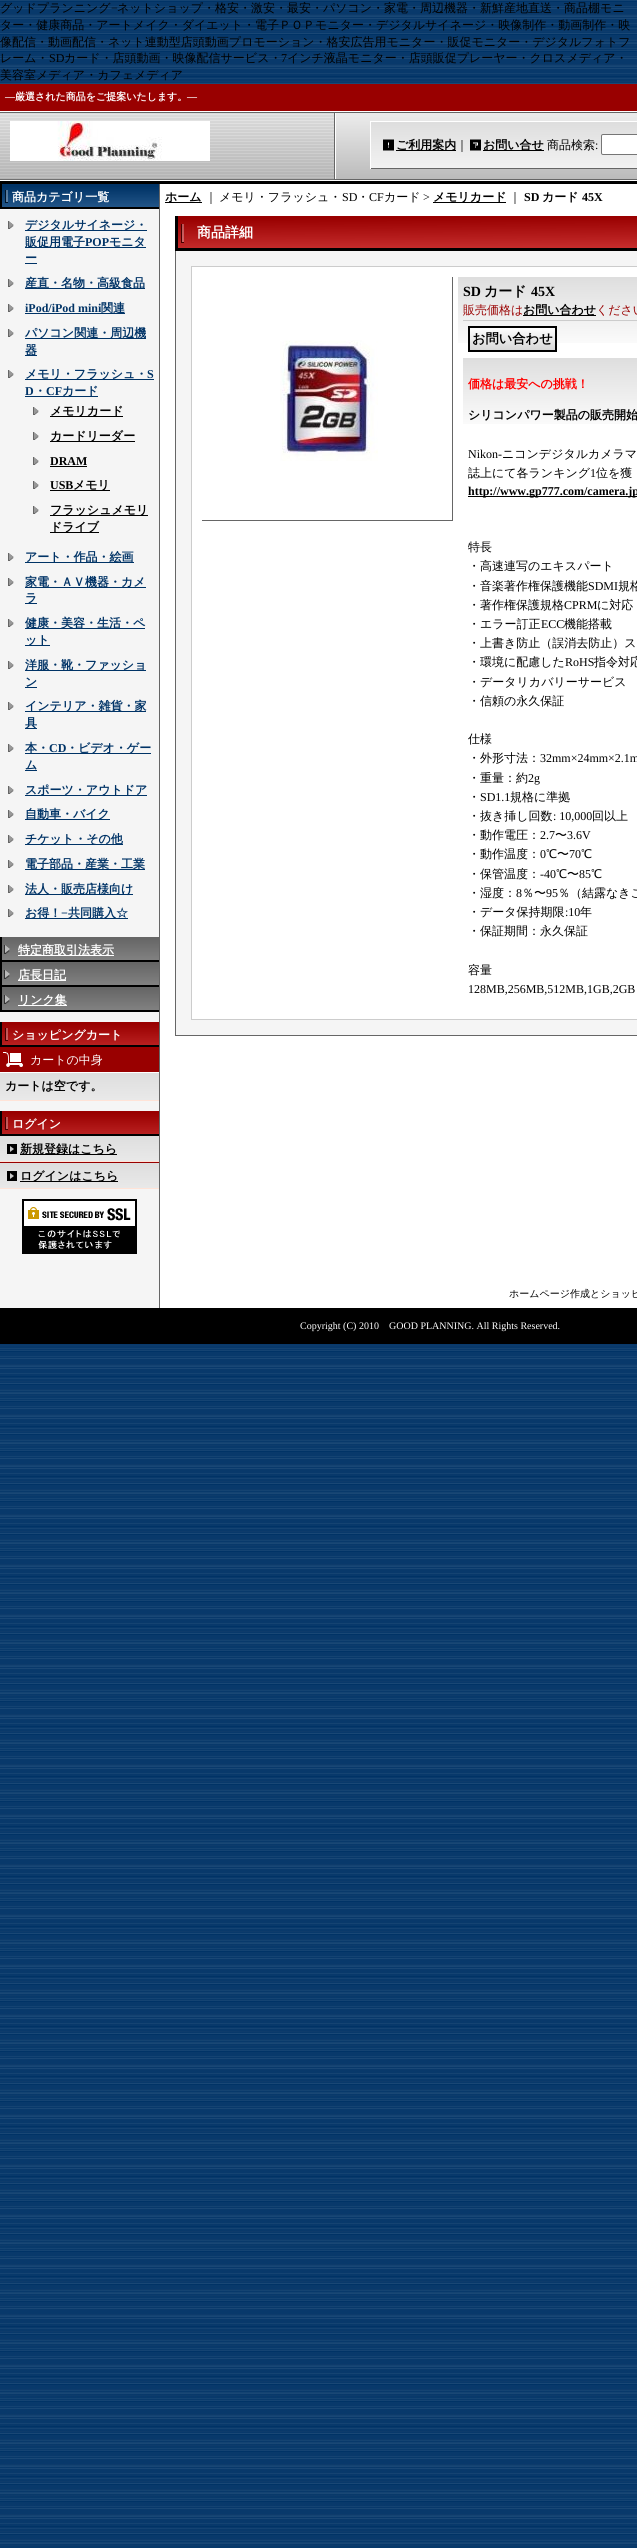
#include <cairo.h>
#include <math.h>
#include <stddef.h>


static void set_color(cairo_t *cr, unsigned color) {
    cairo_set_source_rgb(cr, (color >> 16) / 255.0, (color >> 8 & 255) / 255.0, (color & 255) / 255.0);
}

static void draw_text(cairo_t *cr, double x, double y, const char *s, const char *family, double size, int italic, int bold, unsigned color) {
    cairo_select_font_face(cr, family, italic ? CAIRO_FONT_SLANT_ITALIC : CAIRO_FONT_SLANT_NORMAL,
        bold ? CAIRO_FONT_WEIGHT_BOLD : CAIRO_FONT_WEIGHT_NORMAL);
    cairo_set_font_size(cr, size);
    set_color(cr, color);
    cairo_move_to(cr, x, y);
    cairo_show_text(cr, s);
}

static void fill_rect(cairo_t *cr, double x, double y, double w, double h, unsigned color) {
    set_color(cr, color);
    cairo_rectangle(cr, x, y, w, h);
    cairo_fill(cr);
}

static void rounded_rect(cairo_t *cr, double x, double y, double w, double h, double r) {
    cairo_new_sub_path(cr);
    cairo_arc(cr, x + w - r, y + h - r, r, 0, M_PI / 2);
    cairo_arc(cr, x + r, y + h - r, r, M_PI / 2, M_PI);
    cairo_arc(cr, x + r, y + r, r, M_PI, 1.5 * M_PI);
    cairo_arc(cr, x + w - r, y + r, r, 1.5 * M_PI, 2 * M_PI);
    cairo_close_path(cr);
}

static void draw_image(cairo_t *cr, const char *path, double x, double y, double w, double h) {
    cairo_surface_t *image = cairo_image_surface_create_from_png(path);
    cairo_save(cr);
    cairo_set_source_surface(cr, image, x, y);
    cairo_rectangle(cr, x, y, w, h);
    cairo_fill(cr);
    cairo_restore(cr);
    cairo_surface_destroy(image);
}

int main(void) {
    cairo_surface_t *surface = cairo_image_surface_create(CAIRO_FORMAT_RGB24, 637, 2548);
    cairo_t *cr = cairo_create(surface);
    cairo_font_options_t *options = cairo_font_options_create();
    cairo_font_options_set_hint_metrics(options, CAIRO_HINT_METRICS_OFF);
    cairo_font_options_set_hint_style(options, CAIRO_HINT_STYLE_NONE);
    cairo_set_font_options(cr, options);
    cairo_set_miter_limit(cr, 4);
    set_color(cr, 0xFFFFFF);
    cairo_paint(cr);
    draw_image(cr, "assets/img1.png", 0, 0, 637, 2548);
    draw_text(cr, 0, 12, "グッドプランニング", "WenQuanYi Zen Hei Medium", 12, 0, 0, 0x000000);
    draw_text(cr, 111, 12, "−", "Liberation Serif", 12, 0, 0, 0x000000);
    draw_text(cr, 117, 12, "ネットショップ・格安・激安・最安・パソコン・家電・周辺機器・新鮮産地直送・商品棚モニ", "WenQuanYi Zen Hei Medium", 12, 0, 0, 0x000000);
    draw_text(cr, 0, 29, "ター・健康商品・アートメイク・ダイエット・電子ＰＯＰモニター・デジタルサイネージ・映像制作・動画制作・映", "WenQuanYi Zen Hei Medium", 12, 0, 0, 0x000000);
    draw_text(cr, 0, 46, "像配信・動画配信・ネット連動型店頭動画プロモーション・格安広告用モニター・販促モニター・デジタルフォトフ", "WenQuanYi Zen Hei Medium", 12, 0, 0, 0x000000);
    draw_text(cr, 0, 62, "レーム・", "WenQuanYi Zen Hei Medium", 12, 0, 0, 0x000000);
    draw_text(cr, 49, 62, "SD", "Liberation Serif", 12, 0, 0, 0x000000);
    draw_text(cr, 64, 62, "カード・店頭動画・映像配信サービス・", "WenQuanYi Zen Hei Medium", 12, 0, 0, 0x000000);
    draw_text(cr, 281, 62, "7", "Liberation Serif", 12, 0, 0, 0x000000);
    draw_text(cr, 287, 62, "インチ液晶モニター・店頭販促プレーヤー・クロスメディア・", "WenQuanYi Zen Hei Medium", 12, 0, 0, 0x000000);
    draw_text(cr, 0, 79, "美容室メディア・カフェメディア", "WenQuanYi Zen Hei Medium", 12, 0, 0, 0x000000);
    fill_rect(cr, 0, 111, 637, 1197, 0xFFFFFF);
    fill_rect(cr, 0, 84, 637, 27, 0x990000);
    draw_text(cr, 5, 100, "―", "Liberation Serif", 10, 0, 1, 0xFFFFFF);
    draw_text(cr, 15, 100, "厳選された商品をご提案いたします。", "WenQuanYi Zen Hei", 10, 0, 1, 0xFFFFFF);
    draw_text(cr, 187, 100, "―", "Liberation Serif", 10, 0, 1, 0xFFFFFF);
    draw_image(cr, "assets/img2.png", 0, 112, 637, 68);
    draw_image(cr, "assets/img3.png", 10, 121, 200, 40);
    fill_rect(cr, 371, 121, 266, 1, 0xFFFFFF);
    draw_image(cr, "assets/img4.png", 371, 122, 266, 46);
    fill_rect(cr, 370, 168, 267, 1, 0x666666);
    fill_rect(cr, 370, 121, 1, 48, 0xFFFFFF);
    draw_image(cr, "assets/img5.png", 383, 139, 11, 12);
    fill_rect(cr, 396, 150, 60, 1, 0x000000);
    draw_text(cr, 396, 149, "ご利用案内", "WenQuanYi Zen Hei", 12, 0, 1, 0x000000);
    draw_text(cr, 456, 149, "｜", "WenQuanYi Zen Hei Medium", 12, 0, 0, 0x000000);
    draw_image(cr, "assets/img6.png", 470, 139, 11, 12);
    fill_rect(cr, 483, 150, 61, 1, 0x000000);
    draw_text(cr, 483, 149, "お問い合せ", "WenQuanYi Zen Hei", 12, 0, 1, 0x000000);
    draw_text(cr, 547, 149, "商品検索", "WenQuanYi Zen Hei Medium", 12, 0, 0, 0x000000);
    draw_text(cr, 595, 149, ":", "Liberation Serif", 12, 0, 0, 0x000000);
    set_color(cr, 0xFFFFFF);
    rounded_rect(cr, 601.5, 134.5, 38, 20, 1.5);
    cairo_fill_preserve(cr);
    set_color(cr, 0x767676);
    cairo_set_line_width(cr, 1);
    cairo_stroke(cr);
    fill_rect(cr, 0, 181, 637, 3, 0x000000);
    fill_rect(cr, 0, 209, 159, 1099, 0xF5F5F5);
    fill_rect(cr, 159, 184, 1, 1124, 0x666666);
    draw_image(cr, "assets/img7.png", 0, 184, 159, 25);
    draw_text(cr, 12, 201, "商品カテゴリ一覧", "WenQuanYi Zen Hei", 12, 0, 1, 0xFFFFFF);
    draw_image(cr, "assets/img8.png", 8, 221, 6, 8);
    fill_rect(cr, 25, 230, 122, 1, 0x003366);
    draw_text(cr, 25, 229, "デジタルサイネージ・", "WenQuanYi Zen Hei", 12, 0, 1, 0x003366);
    fill_rect(cr, 25, 247, 121, 1, 0x003366);
    draw_text(cr, 25, 246, "販促用電子", "WenQuanYi Zen Hei", 12, 0, 1, 0x003366);
    draw_text(cr, 85, 246, "POP", "Liberation Serif", 12, 0, 1, 0x003366);
    draw_text(cr, 109, 246, "モニタ", "WenQuanYi Zen Hei", 12, 0, 1, 0x003366);
    draw_text(cr, 25, 262, "ー", "WenQuanYi Zen Hei", 12, 0, 1, 0x003366);
    fill_rect(cr, 25, 263, 12, 1, 0x003366);
    draw_image(cr, "assets/img8.png", 8, 279, 6, 8);
    fill_rect(cr, 25, 288, 120, 1, 0x003366);
    draw_text(cr, 25, 287, "産直・名物・高級食品", "WenQuanYi Zen Hei", 12, 0, 1, 0x003366);
    draw_image(cr, "assets/img8.png", 8, 304, 6, 8);
    draw_text(cr, 25, 312, "iPod/iPod mini", "Liberation Serif", 12, 0, 1, 0x003366);
    fill_rect(cr, 25, 313, 100, 1, 0x003366);
    draw_text(cr, 101, 312, "関連", "WenQuanYi Zen Hei", 12, 0, 1, 0x003366);
    draw_image(cr, "assets/img8.png", 8, 329, 6, 8);
    fill_rect(cr, 25, 338, 121, 1, 0x003366);
    draw_text(cr, 25, 337, "パソコン関連・周辺機", "WenQuanYi Zen Hei", 12, 0, 1, 0x003366);
    fill_rect(cr, 25, 355, 12, 1, 0x003366);
    draw_text(cr, 25, 354, "器", "WenQuanYi Zen Hei", 12, 0, 1, 0x003366);
    draw_image(cr, "assets/img8.png", 8, 370, 6, 8);
    fill_rect(cr, 25, 379, 129, 1, 0x003366);
    draw_text(cr, 25, 378, "メモリ・フラッシュ・", "WenQuanYi Zen Hei", 12, 0, 1, 0x003366);
    draw_text(cr, 147, 378, "S", "Liberation Serif", 12, 0, 1, 0x003366);
    draw_text(cr, 25, 395, "D", "Liberation Serif", 12, 0, 1, 0x003366);
    draw_text(cr, 34, 395, "・", "WenQuanYi Zen Hei", 12, 0, 1, 0x003366);
    draw_text(cr, 46, 395, "CF", "Liberation Serif", 12, 0, 1, 0x003366);
    fill_rect(cr, 25, 396, 73, 1, 0x003366);
    draw_text(cr, 62, 395, "カード", "WenQuanYi Zen Hei", 12, 0, 1, 0x003366);
    draw_image(cr, "assets/img8.png", 33, 407, 6, 8);
    fill_rect(cr, 50, 416, 73, 1, 0x000000);
    draw_text(cr, 50, 415, "メモリカード", "WenQuanYi Zen Hei", 12, 0, 1, 0x000000);
    draw_image(cr, "assets/img8.png", 33, 432, 6, 8);
    fill_rect(cr, 50, 441, 85, 1, 0x000000);
    draw_text(cr, 50, 440, "カードリーダー", "WenQuanYi Zen Hei", 12, 0, 1, 0x000000);
    draw_image(cr, "assets/img8.png", 33, 457, 6, 8);
    draw_text(cr, 50, 465, "DRAM", "Liberation Serif", 12, 0, 1, 0x000000);
    fill_rect(cr, 50, 466, 37, 1, 0x000000);
    draw_image(cr, "assets/img8.png", 33, 481, 6, 8);
    draw_text(cr, 50, 489, "USB", "Liberation Serif", 12, 0, 1, 0x000000);
    fill_rect(cr, 50, 490, 60, 1, 0x000000);
    draw_text(cr, 73, 489, "メモリ", "WenQuanYi Zen Hei", 12, 0, 1, 0x000000);
    draw_image(cr, "assets/img8.png", 33, 506, 6, 8);
    fill_rect(cr, 50, 515, 98, 1, 0x000000);
    draw_text(cr, 50, 514, "フラッシュメモリ", "WenQuanYi Zen Hei", 12, 0, 1, 0x000000);
    fill_rect(cr, 50, 532, 49, 1, 0x000000);
    draw_text(cr, 50, 531, "ドライブ", "WenQuanYi Zen Hei", 12, 0, 1, 0x000000);
    draw_image(cr, "assets/img8.png", 8, 553, 6, 8);
    fill_rect(cr, 25, 562, 109, 1, 0x003366);
    draw_text(cr, 25, 561, "アート・作品・絵画", "WenQuanYi Zen Hei", 12, 0, 1, 0x003366);
    draw_image(cr, "assets/img8.png", 8, 578, 6, 8);
    fill_rect(cr, 25, 587, 121, 1, 0x003366);
    draw_text(cr, 25, 586, "家電・ＡＶ機器・カメ", "WenQuanYi Zen Hei", 12, 0, 1, 0x003366);
    fill_rect(cr, 25, 603, 12, 1, 0x003366);
    draw_text(cr, 25, 602, "ラ", "WenQuanYi Zen Hei", 12, 0, 1, 0x003366);
    draw_image(cr, "assets/img8.png", 8, 619, 6, 8);
    fill_rect(cr, 25, 628, 120, 1, 0x003366);
    draw_text(cr, 25, 627, "健康・美容・生活・ペ", "WenQuanYi Zen Hei", 12, 0, 1, 0x003366);
    fill_rect(cr, 25, 645, 25, 1, 0x003366);
    draw_text(cr, 25, 644, "ット", "WenQuanYi Zen Hei", 12, 0, 1, 0x003366);
    draw_image(cr, "assets/img8.png", 8, 661, 6, 8);
    fill_rect(cr, 25, 670, 121, 1, 0x003366);
    draw_text(cr, 25, 669, "洋服・靴・ファッショ", "WenQuanYi Zen Hei", 12, 0, 1, 0x003366);
    draw_text(cr, 25, 686, "ン", "WenQuanYi Zen Hei", 12, 0, 1, 0x003366);
    fill_rect(cr, 25, 687, 12, 1, 0x003366);
    draw_image(cr, "assets/img8.png", 8, 702, 6, 8);
    fill_rect(cr, 25, 711, 121, 1, 0x003366);
    draw_text(cr, 25, 710, "インテリア・雑貨・家", "WenQuanYi Zen Hei", 12, 0, 1, 0x003366);
    fill_rect(cr, 25, 728, 12, 1, 0x003366);
    draw_text(cr, 25, 727, "具", "WenQuanYi Zen Hei", 12, 0, 1, 0x003366);
    draw_image(cr, "assets/img8.png", 8, 744, 6, 8);
    fill_rect(cr, 25, 753, 126, 1, 0x003366);
    draw_text(cr, 25, 752, "本・", "WenQuanYi Zen Hei", 12, 0, 1, 0x003366);
    draw_text(cr, 49, 752, "CD", "Liberation Serif", 12, 0, 1, 0x003366);
    draw_text(cr, 66, 752, "・ビデオ・ゲー", "WenQuanYi Zen Hei", 12, 0, 1, 0x003366);
    draw_text(cr, 25, 769, "ム", "WenQuanYi Zen Hei", 12, 0, 1, 0x003366);
    fill_rect(cr, 25, 770, 12, 1, 0x003366);
    draw_image(cr, "assets/img8.png", 8, 786, 6, 8);
    fill_rect(cr, 25, 795, 122, 1, 0x003366);
    draw_text(cr, 25, 794, "スポーツ・アウトドア", "WenQuanYi Zen Hei", 12, 0, 1, 0x003366);
    draw_image(cr, "assets/img8.png", 8, 810, 6, 8);
    fill_rect(cr, 25, 819, 85, 1, 0x003366);
    draw_text(cr, 25, 818, "自動車・バイク", "WenQuanYi Zen Hei", 12, 0, 1, 0x003366);
    draw_image(cr, "assets/img8.png", 8, 835, 6, 8);
    fill_rect(cr, 25, 844, 98, 1, 0x003366);
    draw_text(cr, 25, 843, "チケット・その他", "WenQuanYi Zen Hei", 12, 0, 1, 0x003366);
    draw_image(cr, "assets/img8.png", 8, 860, 6, 8);
    fill_rect(cr, 25, 869, 120, 1, 0x003366);
    draw_text(cr, 25, 868, "電子部品・産業・工業", "WenQuanYi Zen Hei", 12, 0, 1, 0x003366);
    draw_image(cr, "assets/img8.png", 8, 885, 6, 8);
    fill_rect(cr, 25, 894, 108, 1, 0x003366);
    draw_text(cr, 25, 893, "法人・販売店様向け", "WenQuanYi Zen Hei", 12, 0, 1, 0x003366);
    draw_image(cr, "assets/img8.png", 8, 909, 6, 8);
    fill_rect(cr, 25, 918, 103, 1, 0x003366);
    draw_text(cr, 25, 917, "お得！", "WenQuanYi Zen Hei", 12, 0, 1, 0x003366);
    draw_text(cr, 61, 917, "−", "Liberation Serif", 12, 0, 1, 0x003366);
    draw_text(cr, 68, 917, "共同購入☆", "WenQuanYi Zen Hei", 12, 0, 1, 0x003366);
    draw_image(cr, "assets/img9.png", 0, 937, 159, 25);
    fill_rect(cr, 18, 955, 96, 1, 0xFFFFFF);
    draw_text(cr, 18, 954, "特定商取引法表示", "WenQuanYi Zen Hei", 12, 0, 1, 0xFFFFFF);
    draw_image(cr, "assets/img9.png", 0, 962, 159, 25);
    fill_rect(cr, 18, 980, 48, 1, 0xFFFFFF);
    draw_text(cr, 18, 979, "店長日記", "WenQuanYi Zen Hei", 12, 0, 1, 0xFFFFFF);
    draw_image(cr, "assets/img9.png", 0, 987, 159, 25);
    fill_rect(cr, 18, 1005, 49, 1, 0xFFFFFF);
    draw_text(cr, 18, 1004, "リンク集", "WenQuanYi Zen Hei", 12, 0, 1, 0xFFFFFF);
    draw_image(cr, "assets/img10.png", 0, 1022, 159, 25);
    draw_text(cr, 12, 1039, "ショッピングカート", "WenQuanYi Zen Hei", 12, 0, 1, 0xFFFFFF);
    fill_rect(cr, 0, 1047, 159, 25, 0x990000);
    draw_image(cr, "assets/img11.png", 3, 1052, 20, 15);
    fill_rect(cr, 0, 1072, 159, 1, 0xFFFFFF);
    draw_text(cr, 30, 1064, "カートの中身", "WenQuanYi Zen Hei Medium", 12, 0, 0, 0xFFFFFF);
    draw_image(cr, "assets/img12.png", 0, 1073, 159, 27);
    fill_rect(cr, 0, 1100, 159, 1, 0xFFE3D7);
    draw_text(cr, 5, 1090, "カートは空です。", "WenQuanYi Zen Hei", 12, 0, 1, 0x000000);
    draw_image(cr, "assets/img10.png", 0, 1111, 159, 25);
    draw_text(cr, 12, 1128, "ログイン", "WenQuanYi Zen Hei", 12, 0, 1, 0xFFFFFF);
    fill_rect(cr, 0, 1162, 159, 1, 0x990000);
    draw_image(cr, "assets/img13.png", 0, 1136, 159, 25);
    fill_rect(cr, 0, 1161, 159, 1, 0xFFE3D7);
    draw_image(cr, "assets/img14.png", 7, 1144, 10, 10);
    fill_rect(cr, 20, 1154, 97, 1, 0x000000);
    draw_text(cr, 20, 1153, "新規登録はこちら", "WenQuanYi Zen Hei", 12, 0, 1, 0x000000);
    draw_image(cr, "assets/img13.png", 0, 1163, 159, 25);
    fill_rect(cr, 0, 1188, 159, 1, 0xFFE3D7);
    draw_image(cr, "assets/img14.png", 7, 1171, 10, 10);
    fill_rect(cr, 20, 1181, 98, 1, 0x000000);
    draw_text(cr, 20, 1180, "ログインはこちら", "WenQuanYi Zen Hei", 12, 0, 1, 0x000000);
    draw_image(cr, "assets/img15.png", 22, 1199, 115, 55);
    fill_rect(cr, 165, 202, 37, 1, 0x000000);
    draw_text(cr, 165, 201, "ホーム", "WenQuanYi Zen Hei", 12, 0, 1, 0x000000);
    draw_text(cr, 205, 201, "｜", "WenQuanYi Zen Hei Medium", 12, 0, 0, 0x000000);
    draw_text(cr, 219, 201, "メモリ・フラッシュ・", "WenQuanYi Zen Hei Medium", 12, 0, 0, 0x000000);
    draw_text(cr, 342, 201, "SD", "Liberation Serif", 12, 0, 0, 0x000000);
    draw_text(cr, 357, 201, "・", "WenQuanYi Zen Hei Medium", 12, 0, 0, 0x000000);
    draw_text(cr, 369, 201, "CF", "Liberation Serif", 12, 0, 0, 0x000000);
    draw_text(cr, 384, 201, "カード", "WenQuanYi Zen Hei Medium", 12, 0, 0, 0x000000);
    draw_text(cr, 423, 201, ">", "Liberation Serif", 12, 0, 0, 0x000000);
    fill_rect(cr, 433, 202, 73, 1, 0x000000);
    draw_text(cr, 433, 201, "メモリカード", "WenQuanYi Zen Hei", 12, 0, 1, 0x000000);
    draw_text(cr, 509, 201, "｜", "WenQuanYi Zen Hei Medium", 12, 0, 0, 0x000000);
    draw_text(cr, 524, 201, "SD", "Liberation Serif", 12, 0, 1, 0x000000);
    draw_text(cr, 542, 201, "カード", "WenQuanYi Zen Hei", 12, 0, 1, 0x000000);
    draw_text(cr, 582, 201, "45X", "Liberation Serif", 12, 0, 1, 0x000000);
    draw_image(cr, "assets/img16.png", 175, 216, 462, 35);
    draw_text(cr, 197, 237, "商品詳細", "WenQuanYi Zen Hei", 14, 0, 1, 0xFFFFFF);
    fill_rect(cr, 176, 251, 461, 784, 0xF5F5F5);
    fill_rect(cr, 175, 251, 1, 774, 0x666666);
    set_color(cr, 0xFFFFFF);
    cairo_rectangle(cr, 191.5, 266.5, 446, 753);
    cairo_fill_preserve(cr);
    set_color(cr, 0xCCCCCC);
    cairo_stroke(cr);
    fill_rect(cr, 452, 277, 1, 244, 0x666666);
    fill_rect(cr, 202, 520, 251, 1, 0x666666);
    draw_image(cr, "assets/img17.png", 280, 340, 98, 121);
    draw_image(cr, "assets/img18.png", 458, 277, 179, 66);
    draw_text(cr, 463, 296, "SD", "Liberation Serif", 14, 0, 1, 0x000000);
    draw_text(cr, 484, 296, "カード", "WenQuanYi Zen Hei", 14, 0, 1, 0x000000);
    draw_text(cr, 531, 296, "45X", "Liberation Serif", 14, 0, 1, 0x000000);
    draw_text(cr, 463, 314, "販売価格は", "WenQuanYi Zen Hei Medium", 12, 0, 0, 0x990000);
    fill_rect(cr, 523, 315, 73, 1, 0x000000);
    draw_text(cr, 523, 314, "お問い合わせ", "WenQuanYi Zen Hei", 12, 0, 1, 0x000000);
    draw_text(cr, 596, 314, "ください", "WenQuanYi Zen Hei Medium", 12, 0, 0, 0x990000);
    fill_rect(cr, 463, 320, 174, 1, 0xCCCCCC);
    draw_image(cr, "assets/img19.png", 470, 328, 85, 22);
    cairo_rectangle(cr, 469, 327, 87, 24);
    set_color(cr, 0x000000);
    cairo_set_line_width(cr, 2);
    cairo_stroke(cr);
    draw_text(cr, 472, 343, "お問い合わせ", "WenQuanYi Zen Hei", 13.25, 0, 1, 0x000000);
    draw_image(cr, "assets/img20.png", 463, 358, 174, 66);
    draw_text(cr, 468, 388, "価格は最安への挑戦！", "WenQuanYi Zen Hei", 12, 0, 1, 0xFF0000);
    draw_text(cr, 468, 419, "シリコンパワー製品の販売開始", "WenQuanYi Zen Hei", 12, 0, 1, 0x000000);
    draw_text(cr, 468, 458, "Nikon-", "Liberation Serif", 12, 0, 0, 0x000000);
    draw_text(cr, 502, 458, "ニコンデジタルカメラマ", "WenQuanYi Zen Hei Medium", 12, 0, 0, 0x000000);
    draw_text(cr, 468, 477, "誌上にて各ランキング", "WenQuanYi Zen Hei Medium", 12, 0, 0, 0x000000);
    draw_text(cr, 590, 477, "1", "Liberation Serif", 12, 0, 0, 0x000000);
    draw_text(cr, 596, 477, "位を獲", "WenQuanYi Zen Hei Medium", 12, 0, 0, 0x000000);
    fill_rect(cr, 468, 496, 169, 1, 0x000000);
    draw_text(cr, 468, 495, "http://www.gp777.com/camera.jp", "Liberation Serif", 12, 0, 1, 0x000000);
    draw_text(cr, 468, 551, "特長", "WenQuanYi Zen Hei Medium", 12, 0, 0, 0x000000);
    draw_text(cr, 468, 570, "・高速連写のエキスパート", "WenQuanYi Zen Hei Medium", 12, 0, 0, 0x000000);
    draw_text(cr, 468, 590, "・音楽著作権保護機能", "WenQuanYi Zen Hei Medium", 12, 0, 0, 0x000000);
    draw_text(cr, 588, 590, "SDMI", "Liberation Serif", 12, 0, 0, 0x000000);
    draw_text(cr, 618, 590, "規格", "WenQuanYi Zen Hei Medium", 12, 0, 0, 0x000000);
    draw_text(cr, 468, 609, "・著作権保護規格", "WenQuanYi Zen Hei Medium", 12, 0, 0, 0x000000);
    draw_text(cr, 564, 609, "CPRM", "Liberation Serif", 12, 0, 0, 0x000000);
    draw_text(cr, 597, 609, "に対応", "WenQuanYi Zen Hei Medium", 12, 0, 0, 0x000000);
    draw_text(cr, 468, 628, "・エラー訂正", "WenQuanYi Zen Hei Medium", 12, 0, 0, 0x000000);
    draw_text(cr, 541, 628, "ECC", "Liberation Serif", 12, 0, 0, 0x000000);
    draw_text(cr, 564, 628, "機能搭載", "WenQuanYi Zen Hei Medium", 12, 0, 0, 0x000000);
    draw_text(cr, 468, 647, "・上書き防止（誤消去防止）ス", "WenQuanYi Zen Hei Medium", 12, 0, 0, 0x000000);
    draw_text(cr, 468, 666, "・環境に配慮した", "WenQuanYi Zen Hei Medium", 12, 0, 0, 0x000000);
    draw_text(cr, 565, 666, "RoHS", "Liberation Serif", 12, 0, 0, 0x000000);
    draw_text(cr, 594, 666, "指令対応", "WenQuanYi Zen Hei Medium", 12, 0, 0, 0x000000);
    draw_text(cr, 468, 686, "・データリカバリーサービス", "WenQuanYi Zen Hei Medium", 12, 0, 0, 0x000000);
    draw_text(cr, 468, 705, "・信頼の永久保証", "WenQuanYi Zen Hei Medium", 12, 0, 0, 0x000000);
    draw_text(cr, 468, 743, "仕様", "WenQuanYi Zen Hei Medium", 12, 0, 0, 0x000000);
    draw_text(cr, 468, 762, "・外形寸法：", "WenQuanYi Zen Hei Medium", 12, 0, 0, 0x000000);
    draw_text(cr, 540, 762, "32mm×24mm×2.1m", "Liberation Serif", 12, 0, 0, 0x000000);
    draw_text(cr, 468, 782, "・重量：約", "WenQuanYi Zen Hei Medium", 12, 0, 0, 0x000000);
    draw_text(cr, 528, 782, "2g", "Liberation Serif", 12, 0, 0, 0x000000);
    draw_text(cr, 468, 801, "・", "WenQuanYi Zen Hei Medium", 12, 0, 0, 0x000000);
    draw_text(cr, 480, 801, "SD1.1", "Liberation Serif", 12, 0, 0, 0x000000);
    draw_text(cr, 510, 801, "規格に準拠", "WenQuanYi Zen Hei Medium", 12, 0, 0, 0x000000);
    draw_text(cr, 468, 820, "・抜き挿し回数", "WenQuanYi Zen Hei Medium", 12, 0, 0, 0x000000);
    draw_text(cr, 553, 820, ": 10,000", "Liberation Serif", 12, 0, 0, 0x000000);
    draw_text(cr, 592, 820, "回以上", "WenQuanYi Zen Hei Medium", 12, 0, 0, 0x000000);
    draw_text(cr, 468, 839, "・動作電圧：", "WenQuanYi Zen Hei Medium", 12, 0, 0, 0x000000);
    draw_text(cr, 540, 839, "2.7", "Liberation Serif", 12, 0, 0, 0x000000);
    draw_text(cr, 555, 839, "〜", "WenQuanYi Zen Hei Medium", 12, 0, 0, 0x000000);
    draw_text(cr, 567, 839, "3.6V", "Liberation Serif", 12, 0, 0, 0x000000);
    draw_text(cr, 468, 858, "・動作温度：", "WenQuanYi Zen Hei Medium", 12, 0, 0, 0x000000);
    draw_text(cr, 540, 858, "0", "Liberation Serif", 12, 0, 0, 0x000000);
    draw_text(cr, 546, 858, "℃〜", "WenQuanYi Zen Hei Medium", 12, 0, 0, 0x000000);
    draw_text(cr, 569, 858, "70", "Liberation Serif", 12, 0, 0, 0x000000);
    draw_text(cr, 581, 858, "℃", "WenQuanYi Zen Hei Medium", 12, 0, 0, 0x000000);
    draw_text(cr, 468, 878, "・保管温度：", "WenQuanYi Zen Hei Medium", 12, 0, 0, 0x000000);
    draw_text(cr, 540, 878, "-40", "Liberation Serif", 12, 0, 0, 0x000000);
    draw_text(cr, 556, 878, "℃〜", "WenQuanYi Zen Hei Medium", 12, 0, 0, 0x000000);
    draw_text(cr, 579, 878, "85", "Liberation Serif", 12, 0, 0, 0x000000);
    draw_text(cr, 591, 878, "℃", "WenQuanYi Zen Hei Medium", 12, 0, 0, 0x000000);
    draw_text(cr, 468, 897, "・湿度：", "WenQuanYi Zen Hei Medium", 12, 0, 0, 0x000000);
    draw_text(cr, 516, 897, "8", "Liberation Serif", 12, 0, 0, 0x000000);
    draw_text(cr, 522, 897, "％〜", "WenQuanYi Zen Hei Medium", 12, 0, 0, 0x000000);
    draw_text(cr, 546, 897, "95", "Liberation Serif", 12, 0, 0, 0x000000);
    draw_text(cr, 558, 897, "％（結露なきこ", "WenQuanYi Zen Hei Medium", 12, 0, 0, 0x000000);
    draw_text(cr, 468, 916, "・データ保持期限", "WenQuanYi Zen Hei Medium", 12, 0, 0, 0x000000);
    draw_text(cr, 565, 916, ":10", "Liberation Serif", 12, 0, 0, 0x000000);
    draw_text(cr, 580, 916, "年", "WenQuanYi Zen Hei Medium", 12, 0, 0, 0x000000);
    draw_text(cr, 468, 935, "・保証期間：永久保証", "WenQuanYi Zen Hei Medium", 12, 0, 0, 0x000000);
    draw_text(cr, 468, 974, "容量", "WenQuanYi Zen Hei Medium", 12, 0, 0, 0x000000);
    draw_text(cr, 468, 993, "128MB,256MB,512MB,1GB,2GB", "Liberation Serif", 12, 0, 0, 0x000000);
    fill_rect(cr, 175, 1035, 462, 1, 0x666666);
    fill_rect(cr, 175, 1025, 1, 11, 0x666666);
    draw_text(cr, 509, 1297, "ホームページ作成とショッピ", "WenQuanYi Zen Hei Medium", 10, 0, 0, 0x000000);
    fill_rect(cr, 0, 1308, 637, 36, 0x000000);
    draw_text(cr, 300, 1329, "Copyright (C) 2010", "Liberation Serif", 10, 0, 0, 0xFFFFFF);
    draw_text(cr, 389, 1329, "GOOD PLANNING. All Rights Reserved.", "Liberation Serif", 10, 0, 0, 0xFFFFFF);
    cairo_surface_write_to_png(surface, "output.png");
    cairo_font_options_destroy(options);
    cairo_destroy(cr);
    cairo_surface_destroy(surface);
    return 0;
}
